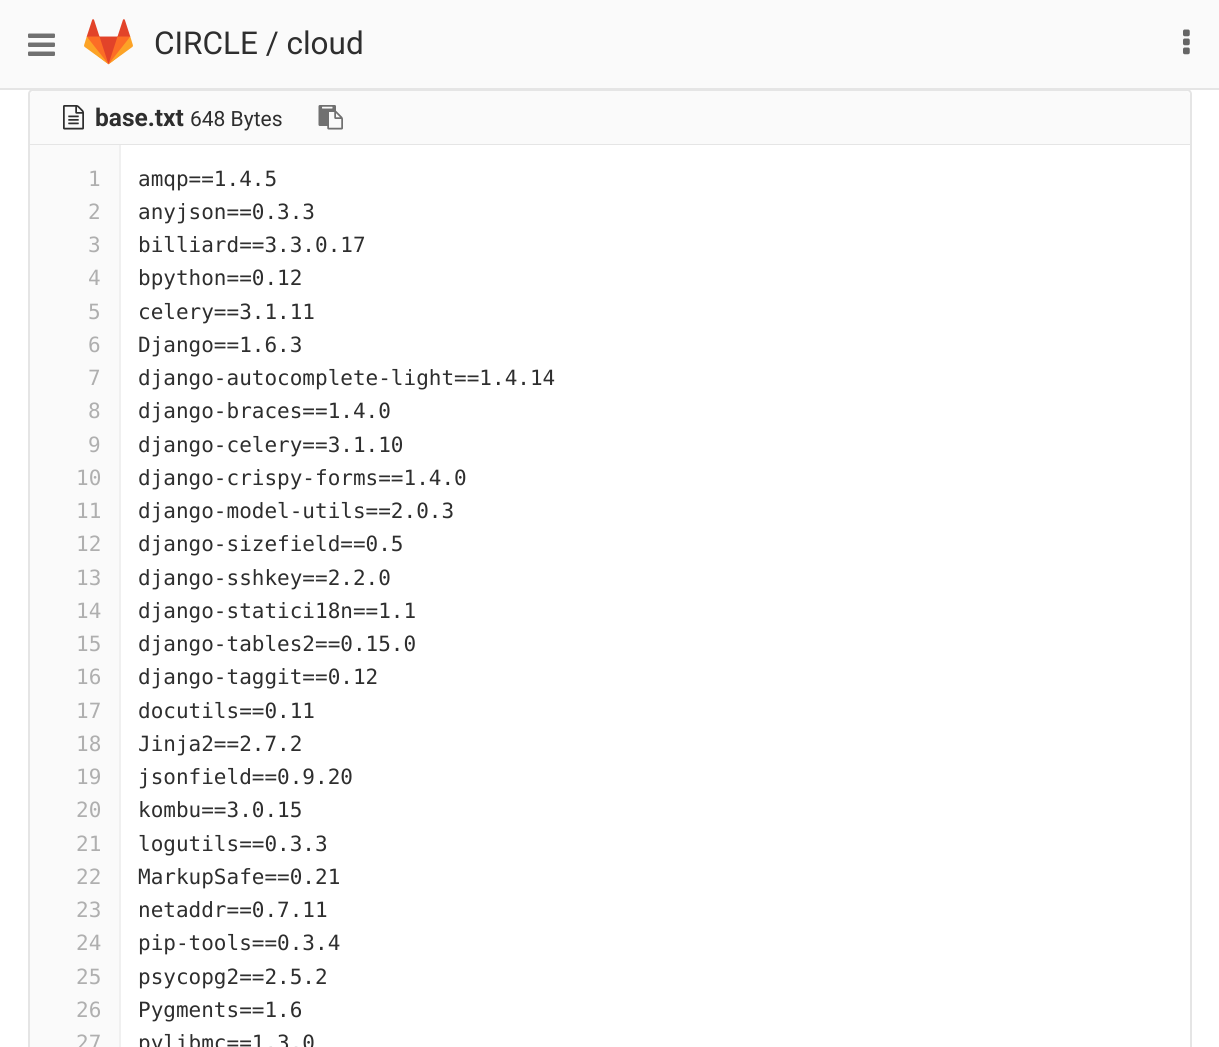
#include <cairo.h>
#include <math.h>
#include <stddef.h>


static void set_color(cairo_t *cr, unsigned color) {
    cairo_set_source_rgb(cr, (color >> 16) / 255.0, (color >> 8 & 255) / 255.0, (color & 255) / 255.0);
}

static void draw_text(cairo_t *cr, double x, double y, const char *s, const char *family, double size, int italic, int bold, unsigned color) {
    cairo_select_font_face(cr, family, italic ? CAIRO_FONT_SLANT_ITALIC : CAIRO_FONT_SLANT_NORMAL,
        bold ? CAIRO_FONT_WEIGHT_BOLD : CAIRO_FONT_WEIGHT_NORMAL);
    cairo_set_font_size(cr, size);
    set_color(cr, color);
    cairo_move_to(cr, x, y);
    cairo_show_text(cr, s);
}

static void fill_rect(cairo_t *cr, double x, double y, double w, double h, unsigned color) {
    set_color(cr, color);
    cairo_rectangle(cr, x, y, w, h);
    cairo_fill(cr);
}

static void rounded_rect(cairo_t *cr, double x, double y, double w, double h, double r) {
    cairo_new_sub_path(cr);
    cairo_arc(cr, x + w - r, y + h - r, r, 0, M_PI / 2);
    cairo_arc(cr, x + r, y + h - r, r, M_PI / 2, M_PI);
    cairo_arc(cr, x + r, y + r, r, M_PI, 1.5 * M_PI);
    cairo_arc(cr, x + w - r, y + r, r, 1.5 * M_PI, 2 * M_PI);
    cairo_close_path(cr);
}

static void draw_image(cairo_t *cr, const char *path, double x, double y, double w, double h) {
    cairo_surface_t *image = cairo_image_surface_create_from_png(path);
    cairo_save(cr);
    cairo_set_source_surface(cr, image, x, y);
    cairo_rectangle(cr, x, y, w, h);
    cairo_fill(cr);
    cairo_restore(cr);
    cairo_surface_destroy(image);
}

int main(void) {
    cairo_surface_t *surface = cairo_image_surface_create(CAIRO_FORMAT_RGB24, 1219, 1047);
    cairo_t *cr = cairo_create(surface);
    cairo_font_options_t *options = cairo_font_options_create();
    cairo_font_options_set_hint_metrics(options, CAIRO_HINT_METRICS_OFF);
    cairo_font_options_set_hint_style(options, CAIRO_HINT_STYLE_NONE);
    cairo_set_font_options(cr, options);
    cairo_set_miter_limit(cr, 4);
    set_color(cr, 0xFFFFFF);
    cairo_paint(cr);
    fill_rect(cr, 0, 0, 1219, 88, 0xFAFAFA);
    draw_image(cr, "assets/img1.png", 28, 33, 27, 23);
    draw_image(cr, "assets/img2.png", 84, 19, 49, 46);
    draw_text(cr, 154, 54, "CIRCLE / cloud", "Roboto", 31.5, 0, 0, 0x2E2E2E);
    draw_image(cr, "assets/img3.png", 1183, 29, 7, 26);
    rounded_rect(cr, 29, 90, 1162, 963, 4);
    set_color(cr, 0xE5E5E5);
    cairo_stroke(cr);
    fill_rect(cr, 0, 88, 1219, 2, 0xE5E5E5);
    set_color(cr, 0xFAFAFA);
    cairo_new_path(cr);
    cairo_move_to(cr, 35, 91);
    cairo_line_to(cr, 1185, 91);
    cairo_curve_to(cr, 1188, 91, 1190, 93, 1190, 96);
    cairo_line_to(cr, 1190, 145);
    cairo_line_to(cr, 30, 145);
    cairo_line_to(cr, 30, 96);
    cairo_curve_to(cr, 30, 93, 32, 91, 35, 91);
    cairo_close_path(cr);
    cairo_fill(cr);
    fill_rect(cr, 30, 144, 1160, 1, 0xE5E5E5);
    draw_image(cr, "assets/img4.png", 63, 105, 21, 25);
    draw_text(cr, 95, 126, "base.txt", "Roboto", 24.5, 0, 1, 0x2E2E2E);
    draw_text(cr, 190, 126, "648 Bytes", "Roboto", 21, 0, 0, 0x2E2E2E);
    draw_image(cr, "assets/img5.png", 318, 105, 25, 25);
    fill_rect(cr, 30, 145, 89, 902, 0xFAFAFA);
    draw_text(cr, 88, 186, "1", "DejaVu Sans Mono", 21, 0, 0, 0xAFAFAF);
    draw_text(cr, 88, 219, "2", "DejaVu Sans Mono", 21, 0, 0, 0xAFAFAF);
    draw_text(cr, 88, 252, "3", "DejaVu Sans Mono", 21, 0, 0, 0xAFAFAF);
    draw_text(cr, 88, 285, "4", "DejaVu Sans Mono", 21, 0, 0, 0xAFAFAF);
    draw_text(cr, 88, 319, "5", "DejaVu Sans Mono", 21, 0, 0, 0xAFAFAF);
    draw_text(cr, 88, 352, "6", "DejaVu Sans Mono", 21, 0, 0, 0xAFAFAF);
    draw_text(cr, 88, 385, "7", "DejaVu Sans Mono", 21, 0, 0, 0xAFAFAF);
    draw_text(cr, 88, 418, "8", "DejaVu Sans Mono", 21, 0, 0, 0xAFAFAF);
    draw_text(cr, 88, 452, "9", "DejaVu Sans Mono", 21, 0, 0, 0xAFAFAF);
    draw_text(cr, 76, 485, "10", "DejaVu Sans Mono", 21, 0, 0, 0xAFAFAF);
    draw_text(cr, 76, 518, "11", "DejaVu Sans Mono", 21, 0, 0, 0xAFAFAF);
    draw_text(cr, 76, 551, "12", "DejaVu Sans Mono", 21, 0, 0, 0xAFAFAF);
    draw_text(cr, 76, 585, "13", "DejaVu Sans Mono", 21, 0, 0, 0xAFAFAF);
    draw_text(cr, 76, 618, "14", "DejaVu Sans Mono", 21, 0, 0, 0xAFAFAF);
    draw_text(cr, 76, 651, "15", "DejaVu Sans Mono", 21, 0, 0, 0xAFAFAF);
    draw_text(cr, 76, 684, "16", "DejaVu Sans Mono", 21, 0, 0, 0xAFAFAF);
    draw_text(cr, 76, 718, "17", "DejaVu Sans Mono", 21, 0, 0, 0xAFAFAF);
    draw_text(cr, 76, 751, "18", "DejaVu Sans Mono", 21, 0, 0, 0xAFAFAF);
    draw_text(cr, 76, 784, "19", "DejaVu Sans Mono", 21, 0, 0, 0xAFAFAF);
    draw_text(cr, 76, 817, "20", "DejaVu Sans Mono", 21, 0, 0, 0xAFAFAF);
    draw_text(cr, 76, 851, "21", "DejaVu Sans Mono", 21, 0, 0, 0xAFAFAF);
    draw_text(cr, 76, 884, "22", "DejaVu Sans Mono", 21, 0, 0, 0xAFAFAF);
    draw_text(cr, 76, 917, "23", "DejaVu Sans Mono", 21, 0, 0, 0xAFAFAF);
    draw_text(cr, 76, 950, "24", "DejaVu Sans Mono", 21, 0, 0, 0xAFAFAF);
    draw_text(cr, 76, 984, "25", "DejaVu Sans Mono", 21, 0, 0, 0xAFAFAF);
    draw_text(cr, 76, 1017, "26", "DejaVu Sans Mono", 21, 0, 0, 0xAFAFAF);
    draw_text(cr, 76, 1050, "27", "DejaVu Sans Mono", 21, 0, 0, 0xAFAFAF);
    fill_rect(cr, 119, 145, 2, 902, 0xF0F0F0);
    draw_text(cr, 138, 186, "amqp==1.4.5", "DejaVu Sans Mono", 21, 0, 0, 0x2E2E2E);
    draw_text(cr, 138, 219, "anyjson==0.3.3", "DejaVu Sans Mono", 21, 0, 0, 0x2E2E2E);
    draw_text(cr, 138, 252, "billiard==3.3.0.17", "DejaVu Sans Mono", 21, 0, 0, 0x2E2E2E);
    draw_text(cr, 138, 285, "bpython==0.12", "DejaVu Sans Mono", 21, 0, 0, 0x2E2E2E);
    draw_text(cr, 138, 319, "celery==3.1.11", "DejaVu Sans Mono", 21, 0, 0, 0x2E2E2E);
    draw_text(cr, 138, 352, "Django==1.6.3", "DejaVu Sans Mono", 21, 0, 0, 0x2E2E2E);
    draw_text(cr, 138, 385, "django-autocomplete-light==1.4.14", "DejaVu Sans Mono", 21, 0, 0, 0x2E2E2E);
    draw_text(cr, 138, 418, "django-braces==1.4.0", "DejaVu Sans Mono", 21, 0, 0, 0x2E2E2E);
    draw_text(cr, 138, 452, "django-celery==3.1.10", "DejaVu Sans Mono", 21, 0, 0, 0x2E2E2E);
    draw_text(cr, 138, 485, "django-crispy-forms==1.4.0", "DejaVu Sans Mono", 21, 0, 0, 0x2E2E2E);
    draw_text(cr, 138, 518, "django-model-utils==2.0.3", "DejaVu Sans Mono", 21, 0, 0, 0x2E2E2E);
    draw_text(cr, 138, 551, "django-sizefield==0.5", "DejaVu Sans Mono", 21, 0, 0, 0x2E2E2E);
    draw_text(cr, 138, 585, "django-sshkey==2.2.0", "DejaVu Sans Mono", 21, 0, 0, 0x2E2E2E);
    draw_text(cr, 138, 618, "django-statici18n==1.1", "DejaVu Sans Mono", 21, 0, 0, 0x2E2E2E);
    draw_text(cr, 138, 651, "django-tables2==0.15.0", "DejaVu Sans Mono", 21, 0, 0, 0x2E2E2E);
    draw_text(cr, 138, 684, "django-taggit==0.12", "DejaVu Sans Mono", 21, 0, 0, 0x2E2E2E);
    draw_text(cr, 138, 718, "docutils==0.11", "DejaVu Sans Mono", 21, 0, 0, 0x2E2E2E);
    draw_text(cr, 138, 751, "Jinja2==2.7.2", "DejaVu Sans Mono", 21, 0, 0, 0x2E2E2E);
    draw_text(cr, 138, 784, "jsonfield==0.9.20", "DejaVu Sans Mono", 21, 0, 0, 0x2E2E2E);
    draw_text(cr, 138, 817, "kombu==3.0.15", "DejaVu Sans Mono", 21, 0, 0, 0x2E2E2E);
    draw_text(cr, 138, 851, "logutils==0.3.3", "DejaVu Sans Mono", 21, 0, 0, 0x2E2E2E);
    draw_text(cr, 138, 884, "MarkupSafe==0.21", "DejaVu Sans Mono", 21, 0, 0, 0x2E2E2E);
    draw_text(cr, 138, 917, "netaddr==0.7.11", "DejaVu Sans Mono", 21, 0, 0, 0x2E2E2E);
    draw_text(cr, 138, 950, "pip-tools==0.3.4", "DejaVu Sans Mono", 21, 0, 0, 0x2E2E2E);
    draw_text(cr, 138, 984, "psycopg2==2.5.2", "DejaVu Sans Mono", 21, 0, 0, 0x2E2E2E);
    draw_text(cr, 138, 1017, "Pygments==1.6", "DejaVu Sans Mono", 21, 0, 0, 0x2E2E2E);
    draw_text(cr, 138, 1050, "pylibmc==1.3.0", "DejaVu Sans Mono", 21, 0, 0, 0x2E2E2E);
    cairo_surface_write_to_png(surface, "output.png");
    cairo_font_options_destroy(options);
    cairo_destroy(cr);
    cairo_surface_destroy(surface);
    return 0;
}
